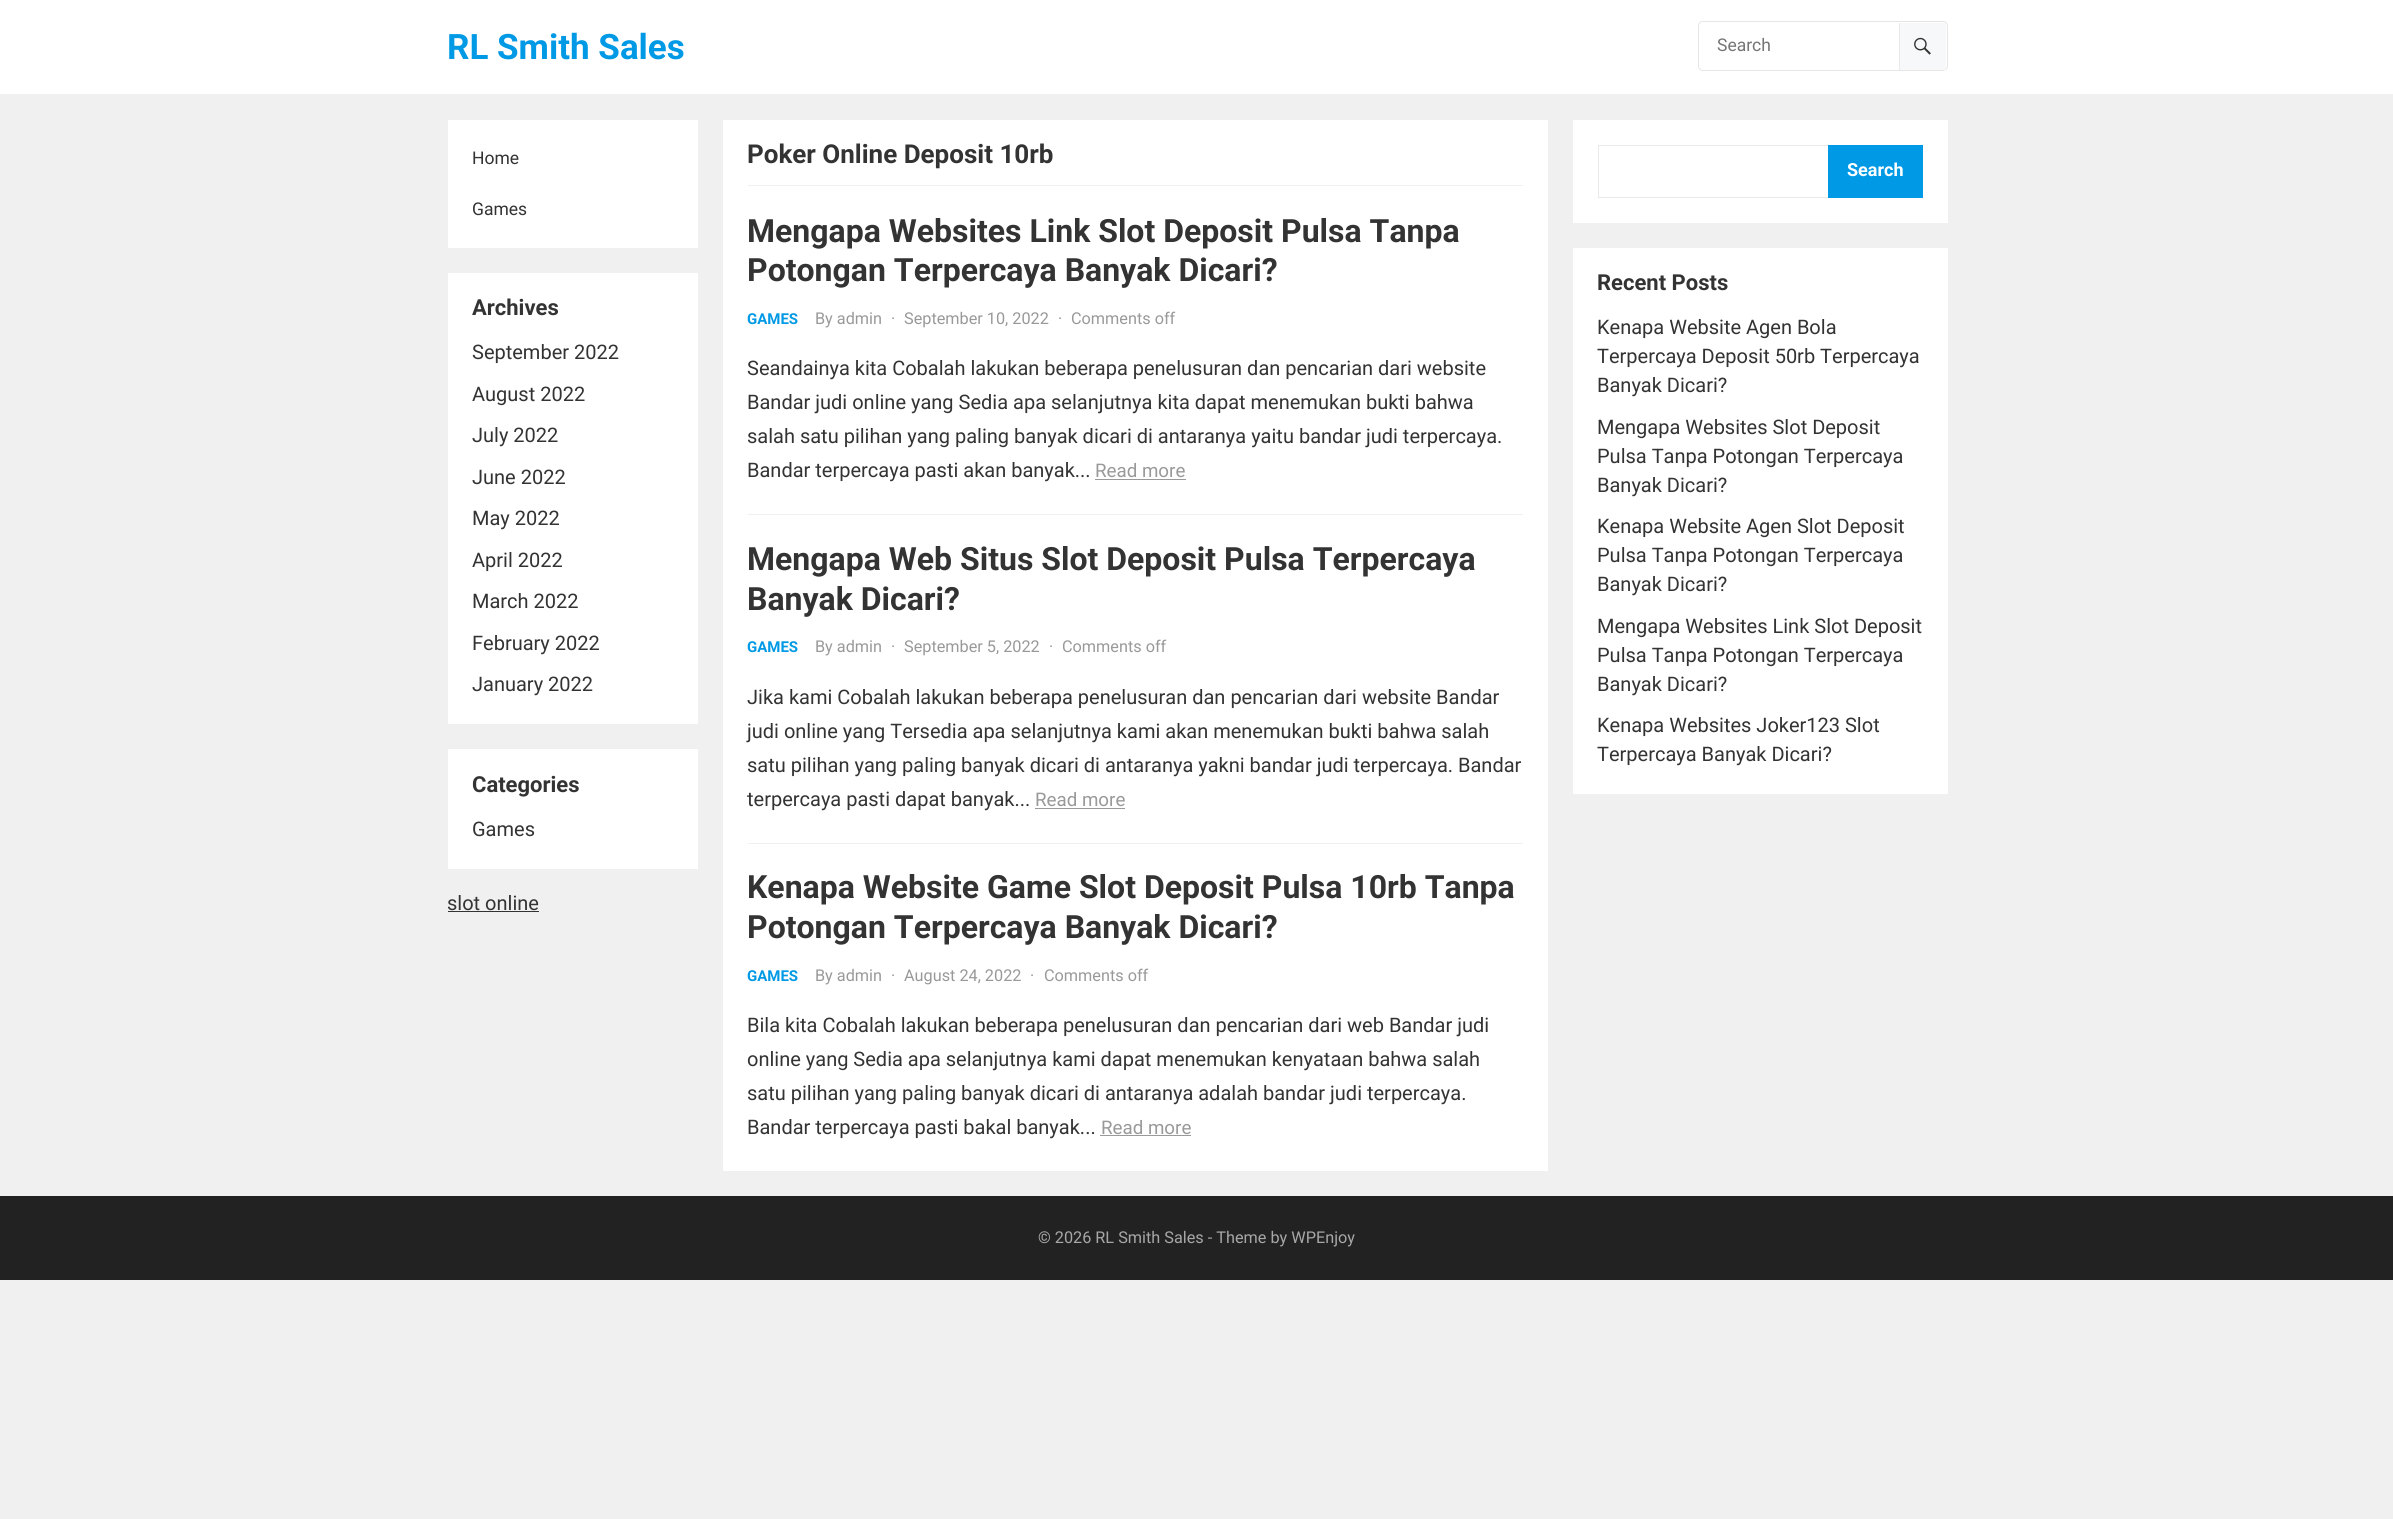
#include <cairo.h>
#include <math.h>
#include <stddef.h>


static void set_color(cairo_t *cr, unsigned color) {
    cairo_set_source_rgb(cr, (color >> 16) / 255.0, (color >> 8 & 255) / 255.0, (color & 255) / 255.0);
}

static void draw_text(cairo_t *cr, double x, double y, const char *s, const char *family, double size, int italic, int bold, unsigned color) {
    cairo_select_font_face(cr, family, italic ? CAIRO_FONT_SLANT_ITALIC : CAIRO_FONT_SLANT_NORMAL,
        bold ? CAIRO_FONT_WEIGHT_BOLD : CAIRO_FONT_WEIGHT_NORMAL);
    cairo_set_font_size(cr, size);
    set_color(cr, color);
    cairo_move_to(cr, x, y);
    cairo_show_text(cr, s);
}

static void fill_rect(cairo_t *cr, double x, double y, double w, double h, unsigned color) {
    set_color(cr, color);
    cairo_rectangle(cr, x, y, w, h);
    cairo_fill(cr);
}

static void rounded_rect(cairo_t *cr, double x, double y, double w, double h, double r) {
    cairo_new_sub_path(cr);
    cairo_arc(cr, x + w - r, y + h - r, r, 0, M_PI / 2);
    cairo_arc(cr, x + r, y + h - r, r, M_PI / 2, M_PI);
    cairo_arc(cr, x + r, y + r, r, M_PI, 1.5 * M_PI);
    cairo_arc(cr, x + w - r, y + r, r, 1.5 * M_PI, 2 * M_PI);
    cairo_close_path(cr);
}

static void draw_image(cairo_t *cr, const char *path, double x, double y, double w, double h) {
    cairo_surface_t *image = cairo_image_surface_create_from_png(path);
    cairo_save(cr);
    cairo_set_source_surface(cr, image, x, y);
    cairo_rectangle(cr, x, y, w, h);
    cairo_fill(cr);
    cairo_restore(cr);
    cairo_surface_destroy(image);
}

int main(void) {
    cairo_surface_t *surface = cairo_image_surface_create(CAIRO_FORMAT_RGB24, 2393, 1519);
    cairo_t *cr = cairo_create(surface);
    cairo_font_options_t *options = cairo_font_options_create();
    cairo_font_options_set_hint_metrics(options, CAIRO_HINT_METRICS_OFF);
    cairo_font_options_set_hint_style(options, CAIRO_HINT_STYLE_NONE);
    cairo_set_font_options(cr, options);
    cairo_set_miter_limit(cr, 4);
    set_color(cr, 0xF0F0F0);
    cairo_paint(cr);
    fill_rect(cr, 0, 0, 2393, 94, 0xFFFFFF);
    draw_text(cr, 447, 59, "RL Smith Sales", "Roboto", 35, 0, 1, 0x0099E5);
    rounded_rect(cr, 1698.5, 21.5, 249, 49, 4.5);
    set_color(cr, 0xE6E6E6);
    cairo_set_line_width(cr, 1);
    cairo_stroke(cr);
    draw_text(cr, 1717, 51, "Search", "Roboto", 17.5, 0, 0, 0x757575);
    fill_rect(cr, 1900, 23, 46, 47, 0xF7F8F9);
    fill_rect(cr, 1899, 23, 1, 47, 0xE9E9E9);
    draw_image(cr, "assets/img1.png", 1914, 37, 17, 18);
    fill_rect(cr, 448, 120, 250, 128, 0xFFFFFF);
    draw_text(cr, 472, 164, "Home", "Roboto", 17.5, 0, 0, 0x333333);
    draw_text(cr, 472, 215, "Games", "Roboto", 17.5, 0, 0, 0x333333);
    fill_rect(cr, 448, 273, 250, 451, 0xFFFFFF);
    draw_text(cr, 472, 315, "Archives", "Roboto", 22, 0, 1, 0x333333);
    draw_text(cr, 472, 359, "September 2022", "Roboto", 20, 0, 0, 0x333333);
    draw_text(cr, 472, 401, "August 2022", "Roboto", 20, 0, 0, 0x333333);
    draw_text(cr, 472, 442, "July 2022", "Roboto", 20, 0, 0, 0x333333);
    draw_text(cr, 472, 484, "June 2022", "Roboto", 20, 0, 0, 0x333333);
    draw_text(cr, 472, 525, "May 2022", "Roboto", 20, 0, 0, 0x333333);
    draw_text(cr, 472, 567, "April 2022", "Roboto", 20, 0, 0, 0x333333);
    draw_text(cr, 472, 608, "March 2022", "Roboto", 20, 0, 0, 0x333333);
    draw_text(cr, 472, 650, "February 2022", "Roboto", 20, 0, 0, 0x333333);
    draw_text(cr, 472, 691, "January 2022", "Roboto", 20, 0, 0, 0x333333);
    fill_rect(cr, 448, 749, 250, 120, 0xFFFFFF);
    draw_text(cr, 472, 792, "Categories", "Roboto", 22, 0, 1, 0x333333);
    draw_text(cr, 472, 836, "Games", "Roboto", 20, 0, 0, 0x333333);
    draw_text(cr, 447, 910, "slot online", "Roboto", 20, 0, 0, 0x333333);
    fill_rect(cr, 448, 911, 91, 1, 0x333333);
    fill_rect(cr, 723, 120, 825, 1051, 0xFFFFFF);
    fill_rect(cr, 748, 185, 775, 1, 0xF0F0F0);
    draw_text(cr, 747, 163, "Poker Online Deposit 10rb", "Roboto", 26, 0, 1, 0x333333);
    fill_rect(cr, 748, 514, 775, 1, 0xF0F0F0);
    draw_text(cr, 747, 242, "Mengapa Websites Link Slot Deposit Pulsa Tanpa", "Roboto", 32, 0, 1, 0x333333);
    draw_text(cr, 747, 281, "Potongan Terpercaya Banyak Dicari?", "Roboto", 32, 0, 1, 0x333333);
    draw_text(cr, 747, 324, "GAMES", "Roboto", 15, 0, 1, 0x0099E5);
    draw_text(cr, 815, 324, "By admin", "Roboto", 16.25, 0, 0, 0x999999);
    draw_text(cr, 891, 324, "·", "Roboto", 16.25, 0, 0, 0x999999);
    draw_text(cr, 904, 324, "September 10, 2022", "Roboto", 16.25, 0, 0, 0x999999);
    draw_text(cr, 1058, 324, "·", "Roboto", 16.25, 0, 0, 0x999999);
    draw_text(cr, 1071, 324, "Comments off", "Roboto", 16.25, 0, 0, 0x999999);
    draw_text(cr, 747, 375, "Seandainya kita Cobalah lakukan beberapa penelusuran dan pencarian dari website", "Roboto", 20, 0, 0, 0x333333);
    draw_text(cr, 747, 409, "Bandar judi online yang Sedia apa selanjutnya kita dapat menemukan bukti bahwa", "Roboto", 20, 0, 0, 0x333333);
    draw_text(cr, 747, 443, "salah satu pilihan yang paling banyak dicari di antaranya yaitu bandar judi terpercaya.", "Roboto", 20, 0, 0, 0x333333);
    draw_text(cr, 747, 477, "Bandar terpercaya pasti akan banyak...", "Roboto", 20, 0, 0, 0x333333);
    draw_text(cr, 1095, 477, "Read more", "Roboto", 18.75, 0, 0, 0x999999);
    fill_rect(cr, 1095, 479, 91, 1, 0x999999);
    fill_rect(cr, 748, 843, 775, 1, 0xF0F0F0);
    draw_text(cr, 747, 570, "Mengapa Web Situs Slot Deposit Pulsa Terpercaya", "Roboto", 32, 0, 1, 0x333333);
    draw_text(cr, 747, 610, "Banyak Dicari?", "Roboto", 32, 0, 1, 0x333333);
    draw_text(cr, 747, 652, "GAMES", "Roboto", 15, 0, 1, 0x0099E5);
    draw_text(cr, 815, 652, "By admin", "Roboto", 16.25, 0, 0, 0x999999);
    draw_text(cr, 891, 652, "·", "Roboto", 16.25, 0, 0, 0x999999);
    draw_text(cr, 904, 652, "September 5, 2022", "Roboto", 16.25, 0, 0, 0x999999);
    draw_text(cr, 1049, 652, "·", "Roboto", 16.25, 0, 0, 0x999999);
    draw_text(cr, 1062, 652, "Comments off", "Roboto", 16.25, 0, 0, 0x999999);
    draw_text(cr, 747, 704, "Jika kami Cobalah lakukan beberapa penelusuran dan pencarian dari website Bandar", "Roboto", 20, 0, 0, 0x333333);
    draw_text(cr, 747, 738, "judi online yang Tersedia apa selanjutnya kami akan menemukan bukti bahwa salah", "Roboto", 20, 0, 0, 0x333333);
    draw_text(cr, 747, 772, "satu pilihan yang paling banyak dicari di antaranya yakni bandar judi terpercaya. Bandar", "Roboto", 20, 0, 0, 0x333333);
    draw_text(cr, 747, 806, "terpercaya pasti dapat banyak...", "Roboto", 20, 0, 0, 0x333333);
    draw_text(cr, 1035, 806, "Read more", "Roboto", 18.75, 0, 0, 0x999999);
    fill_rect(cr, 1035, 808, 90, 1, 0x999999);
    draw_text(cr, 747, 898, "Kenapa Website Game Slot Deposit Pulsa 10rb Tanpa", "Roboto", 32, 0, 1, 0x333333);
    draw_text(cr, 747, 938, "Potongan Terpercaya Banyak Dicari?", "Roboto", 32, 0, 1, 0x333333);
    draw_text(cr, 747, 981, "GAMES", "Roboto", 15, 0, 1, 0x0099E5);
    draw_text(cr, 815, 981, "By admin", "Roboto", 16.25, 0, 0, 0x999999);
    draw_text(cr, 891, 981, "·", "Roboto", 16.25, 0, 0, 0x999999);
    draw_text(cr, 904, 981, "August 24, 2022", "Roboto", 16.25, 0, 0, 0x999999);
    draw_text(cr, 1030, 981, "·", "Roboto", 16.25, 0, 0, 0x999999);
    draw_text(cr, 1044, 981, "Comments off", "Roboto", 16.25, 0, 0, 0x999999);
    draw_text(cr, 747, 1032, "Bila kita Cobalah lakukan beberapa penelusuran dan pencarian dari web Bandar judi", "Roboto", 20, 0, 0, 0x333333);
    draw_text(cr, 747, 1066, "online yang Sedia apa selanjutnya kami dapat menemukan kenyataan bahwa salah", "Roboto", 20, 0, 0, 0x333333);
    draw_text(cr, 747, 1100, "satu pilihan yang paling banyak dicari di antaranya adalah bandar judi terpercaya.", "Roboto", 20, 0, 0, 0x333333);
    draw_text(cr, 747, 1134, "Bandar terpercaya pasti bakal banyak...", "Roboto", 20, 0, 0, 0x333333);
    draw_text(cr, 1101, 1134, "Read more", "Roboto", 18.75, 0, 0, 0x999999);
    fill_rect(cr, 1100, 1135, 91, 1, 0x999999);
    fill_rect(cr, 1573, 120, 375, 103, 0xFFFFFF);
    cairo_rectangle(cr, 1598.5, 145.5, 324, 52);
    set_color(cr, 0xE9E9E9);
    cairo_stroke(cr);
    fill_rect(cr, 1828, 145, 95, 53, 0x0099E5);
    draw_text(cr, 1847, 176, "Search", "Roboto", 18, 0, 1, 0xFFFFFF);
    fill_rect(cr, 1573, 248, 375, 546, 0xFFFFFF);
    draw_text(cr, 1597, 290, "Recent Posts", "Roboto", 22, 0, 1, 0x333333);
    draw_text(cr, 1597, 334, "Kenapa Website Agen Bola", "Roboto", 20, 0, 0, 0x333333);
    draw_text(cr, 1597, 363, "Terpercaya Deposit 50rb Terpercaya", "Roboto", 20, 0, 0, 0x333333);
    draw_text(cr, 1597, 392, "Banyak Dicari?", "Roboto", 20, 0, 0, 0x333333);
    draw_text(cr, 1597, 434, "Mengapa Websites Slot Deposit", "Roboto", 20, 0, 0, 0x333333);
    draw_text(cr, 1597, 463, "Pulsa Tanpa Potongan Terpercaya", "Roboto", 20, 0, 0, 0x333333);
    draw_text(cr, 1597, 492, "Banyak Dicari?", "Roboto", 20, 0, 0, 0x333333);
    draw_text(cr, 1597, 533, "Kenapa Website Agen Slot Deposit", "Roboto", 20, 0, 0, 0x333333);
    draw_text(cr, 1597, 562, "Pulsa Tanpa Potongan Terpercaya", "Roboto", 20, 0, 0, 0x333333);
    draw_text(cr, 1597, 591, "Banyak Dicari?", "Roboto", 20, 0, 0, 0x333333);
    draw_text(cr, 1597, 633, "Mengapa Websites Link Slot Deposit", "Roboto", 20, 0, 0, 0x333333);
    draw_text(cr, 1597, 662, "Pulsa Tanpa Potongan Terpercaya", "Roboto", 20, 0, 0, 0x333333);
    draw_text(cr, 1597, 691, "Banyak Dicari?", "Roboto", 20, 0, 0, 0x333333);
    draw_text(cr, 1597, 732, "Kenapa Websites Joker123 Slot", "Roboto", 20, 0, 0, 0x333333);
    draw_text(cr, 1597, 761, "Terpercaya Banyak Dicari?", "Roboto", 20, 0, 0, 0x333333);
    fill_rect(cr, 0, 1196, 2393, 84, 0x222222);
    draw_text(cr, 1038, 1243, "© 2026 RL Smith Sales - Theme by WPEnjoy", "Roboto", 16.25, 0, 0, 0xA7A7A7);
    cairo_surface_write_to_png(surface, "output.png");
    cairo_font_options_destroy(options);
    cairo_destroy(cr);
    cairo_surface_destroy(surface);
    return 0;
}
